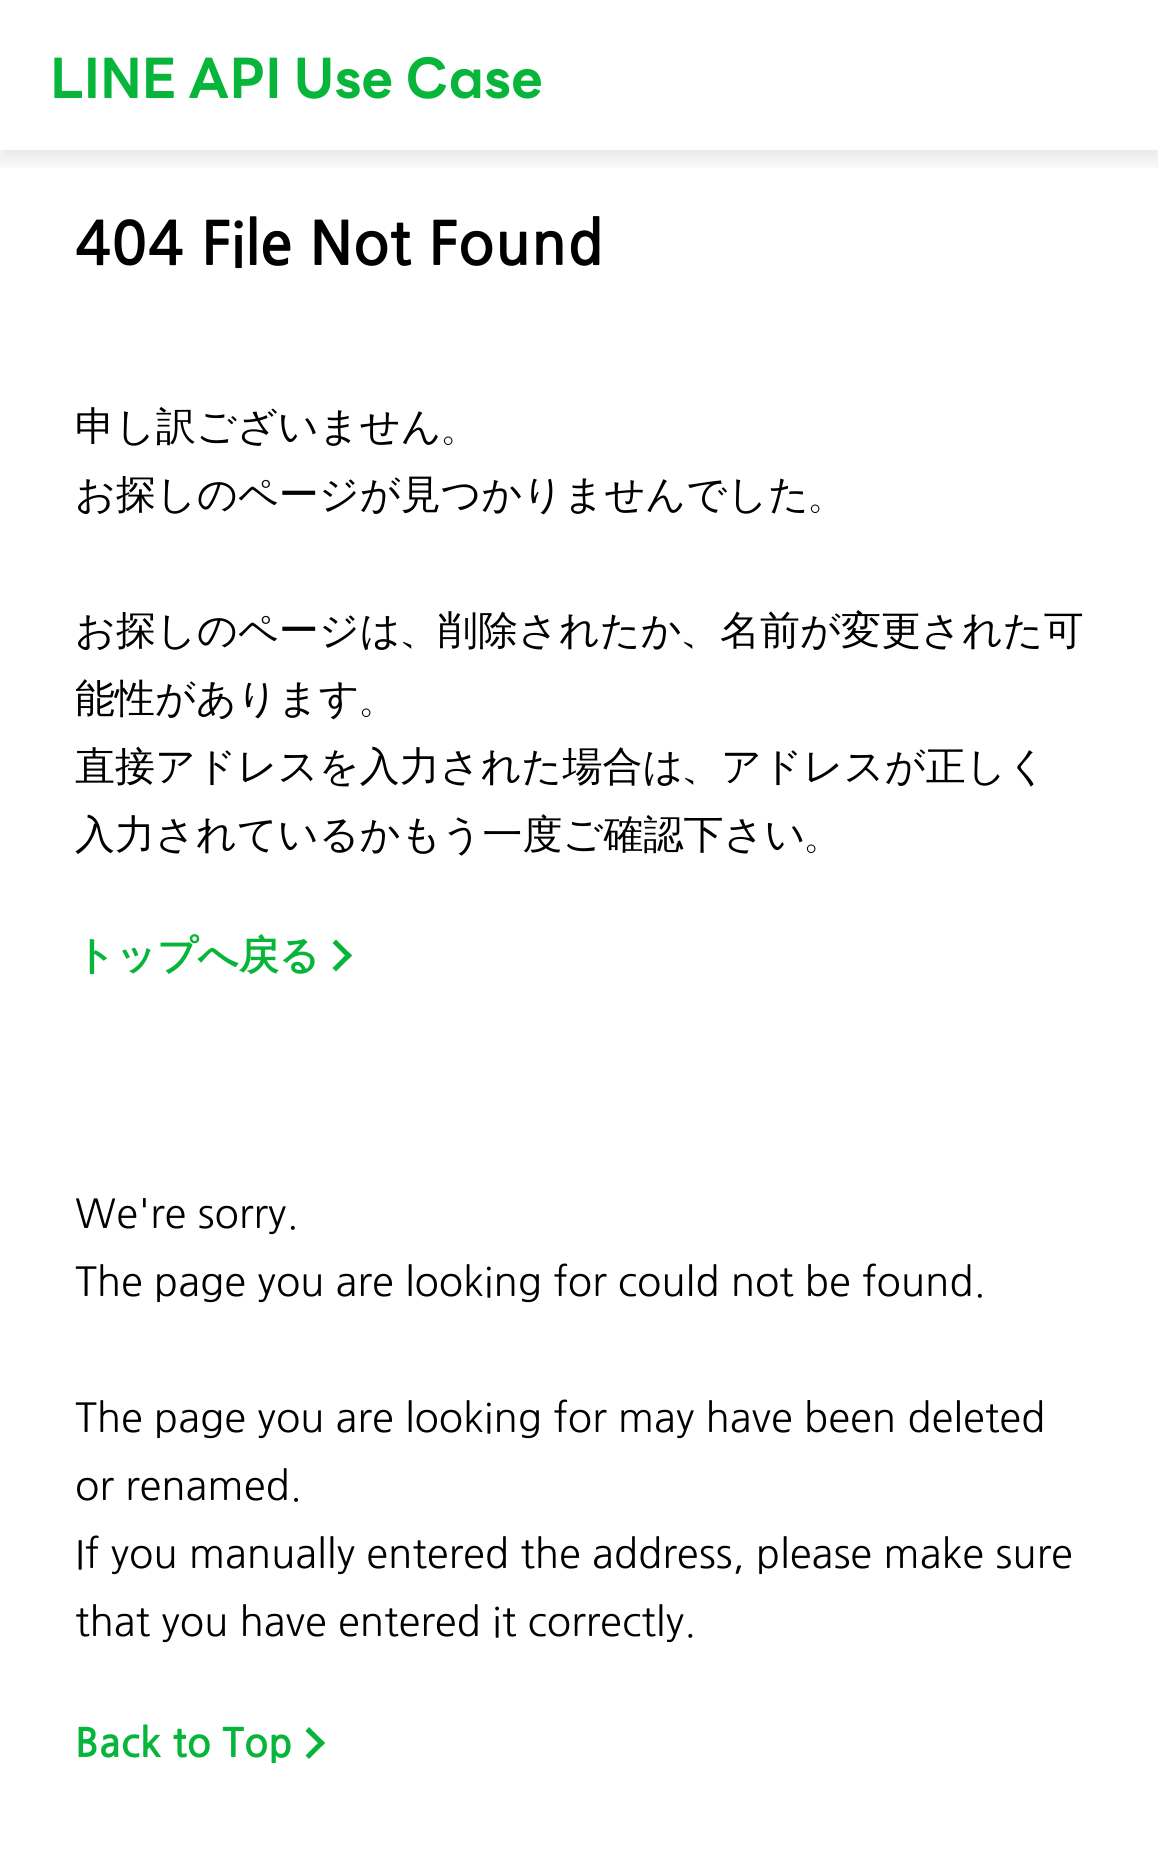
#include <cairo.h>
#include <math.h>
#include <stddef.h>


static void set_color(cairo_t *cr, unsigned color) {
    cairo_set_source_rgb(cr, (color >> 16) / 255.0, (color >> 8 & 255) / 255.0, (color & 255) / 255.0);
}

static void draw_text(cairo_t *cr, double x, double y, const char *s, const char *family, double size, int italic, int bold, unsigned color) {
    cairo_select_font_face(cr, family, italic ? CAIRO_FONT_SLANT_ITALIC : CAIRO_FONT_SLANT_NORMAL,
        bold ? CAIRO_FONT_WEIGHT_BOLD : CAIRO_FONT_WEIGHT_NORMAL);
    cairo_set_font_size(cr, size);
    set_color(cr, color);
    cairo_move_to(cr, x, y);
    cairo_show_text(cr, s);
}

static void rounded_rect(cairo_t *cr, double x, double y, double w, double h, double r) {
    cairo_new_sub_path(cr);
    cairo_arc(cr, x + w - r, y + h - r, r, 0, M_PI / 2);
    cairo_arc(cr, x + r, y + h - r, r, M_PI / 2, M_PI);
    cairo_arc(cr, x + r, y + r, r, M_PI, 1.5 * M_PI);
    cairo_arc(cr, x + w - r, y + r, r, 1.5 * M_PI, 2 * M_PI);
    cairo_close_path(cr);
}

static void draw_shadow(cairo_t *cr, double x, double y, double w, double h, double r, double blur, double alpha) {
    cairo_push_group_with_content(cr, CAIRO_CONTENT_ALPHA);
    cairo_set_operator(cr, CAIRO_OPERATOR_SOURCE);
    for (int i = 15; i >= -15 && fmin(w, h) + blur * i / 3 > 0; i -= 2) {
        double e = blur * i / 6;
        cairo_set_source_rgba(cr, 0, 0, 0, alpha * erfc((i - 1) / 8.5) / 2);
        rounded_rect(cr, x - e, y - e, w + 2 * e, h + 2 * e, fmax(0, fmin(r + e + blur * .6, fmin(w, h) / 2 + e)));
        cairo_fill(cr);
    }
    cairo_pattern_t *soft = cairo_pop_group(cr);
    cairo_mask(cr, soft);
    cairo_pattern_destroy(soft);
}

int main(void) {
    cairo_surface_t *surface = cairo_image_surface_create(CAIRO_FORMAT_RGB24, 1158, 1862);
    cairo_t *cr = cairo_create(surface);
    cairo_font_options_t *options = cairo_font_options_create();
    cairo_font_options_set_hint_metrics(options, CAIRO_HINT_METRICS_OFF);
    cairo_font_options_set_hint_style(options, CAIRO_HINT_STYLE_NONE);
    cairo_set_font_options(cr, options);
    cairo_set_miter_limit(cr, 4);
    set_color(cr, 0xFFFFFF);
    cairo_paint(cr);
    cairo_save(cr);
    cairo_rectangle(cr, 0, 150, 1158, 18);
    cairo_clip(cr);
    set_color(cr, 0x000000);
    draw_shadow(cr, 0, 10, 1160, 150, 0, 10, 0.1);
    cairo_restore(cr);
    draw_text(cr, 50, 98, "LINE API Use Case", "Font", 55, 0, 1, 0x07B53B);
    draw_text(cr, 75, 265, "404 File Not Found", "NanumGothic", 60, 0, 1, 0x000000);
    draw_text(cr, 75, 440, "申し訳ございません", "WenQuanYi Zen Hei Medium", 40, 0, 0, 0x000000);
    draw_text(cr, 442, 440, "。", "NanumGothic", 40, 0, 0, 0x000000);
    draw_text(cr, 75, 508, "お探しのページが見つかりませんでした", "WenQuanYi Zen Hei Medium", 40, 0, 0, 0x000000);
    draw_text(cr, 809, 508, "。", "NanumGothic", 40, 0, 0, 0x000000);
    draw_text(cr, 75, 644, "お探しのページは", "WenQuanYi Zen Hei Medium", 40, 0, 0, 0x000000);
    draw_text(cr, 401, 644, "、", "NanumGothic", 40, 0, 0, 0x000000);
    draw_text(cr, 438, 644, "削除されたか", "WenQuanYi Zen Hei Medium", 40, 0, 0, 0x000000);
    draw_text(cr, 682, 644, "、", "NanumGothic", 40, 0, 0, 0x000000);
    draw_text(cr, 720, 644, "名前が変更された可", "WenQuanYi Zen Hei Medium", 40, 0, 0, 0x000000);
    draw_text(cr, 75, 712, "能性があります", "WenQuanYi Zen Hei Medium", 40, 0, 0, 0x000000);
    draw_text(cr, 360, 712, "。", "NanumGothic", 40, 0, 0, 0x000000);
    draw_text(cr, 75, 780, "直接アドレスを入力された場合は", "WenQuanYi Zen Hei Medium", 40, 0, 0, 0x000000);
    draw_text(cr, 683, 780, "、", "NanumGothic", 40, 0, 0, 0x000000);
    draw_text(cr, 721, 780, "アドレスが正しく", "WenQuanYi Zen Hei Medium", 40, 0, 0, 0x000000);
    draw_text(cr, 75, 848, "入力されているかもう一度ご確認下さい", "WenQuanYi Zen Hei Medium", 40, 0, 0, 0x000000);
    draw_text(cr, 805, 848, "。", "NanumGothic", 40, 0, 0, 0x000000);
    draw_text(cr, 75, 969, "トップへ戻る", "WenQuanYi Zen Hei", 40, 0, 1, 0x07B53B);
    cairo_new_path(cr);
    cairo_move_to(cr, 336, 939.5);
    cairo_line_to(cr, 352, 955.5);
    cairo_line_to(cr, 348.5, 959);
    cairo_line_to(cr, 332.5, 943);
    cairo_close_path(cr);
    cairo_fill(cr);
    cairo_new_path(cr);
    cairo_move_to(cr, 348.5, 952);
    cairo_line_to(cr, 352, 955.5);
    cairo_line_to(cr, 336, 971.5);
    cairo_line_to(cr, 332.5, 968);
    cairo_close_path(cr);
    cairo_fill(cr);
    draw_text(cr, 75, 1228, "We're sorry.", "NanumGothic", 40, 0, 0, 0x000000);
    draw_text(cr, 75, 1296, "The page you are looking for could not be found.", "NanumGothic", 40, 0, 0, 0x000000);
    draw_text(cr, 75, 1432, "The page you are looking for may have been deleted", "NanumGothic", 40, 0, 0, 0x000000);
    draw_text(cr, 75, 1500, "or renamed.", "NanumGothic", 40, 0, 0, 0x000000);
    draw_text(cr, 75, 1568, "If you manually entered the address, please make sure", "NanumGothic", 40, 0, 0, 0x000000);
    draw_text(cr, 75, 1636, "that you have entered it correctly.", "NanumGothic", 40, 0, 0, 0x000000);
    draw_text(cr, 75, 1757, "Back to Top", "NanumGothic", 40, 0, 1, 0x07B53B);
    cairo_new_path(cr);
    cairo_move_to(cr, 309, 1727);
    cairo_line_to(cr, 325, 1743);
    cairo_line_to(cr, 321.5, 1746.5);
    cairo_line_to(cr, 305.5, 1731);
    cairo_close_path(cr);
    cairo_fill(cr);
    cairo_new_path(cr);
    cairo_move_to(cr, 321.5, 1739.5);
    cairo_line_to(cr, 325, 1743);
    cairo_line_to(cr, 309, 1759);
    cairo_line_to(cr, 305.5, 1755.5);
    cairo_close_path(cr);
    cairo_fill(cr);
    cairo_surface_write_to_png(surface, "output.png");
    cairo_font_options_destroy(options);
    cairo_destroy(cr);
    cairo_surface_destroy(surface);
    return 0;
}
